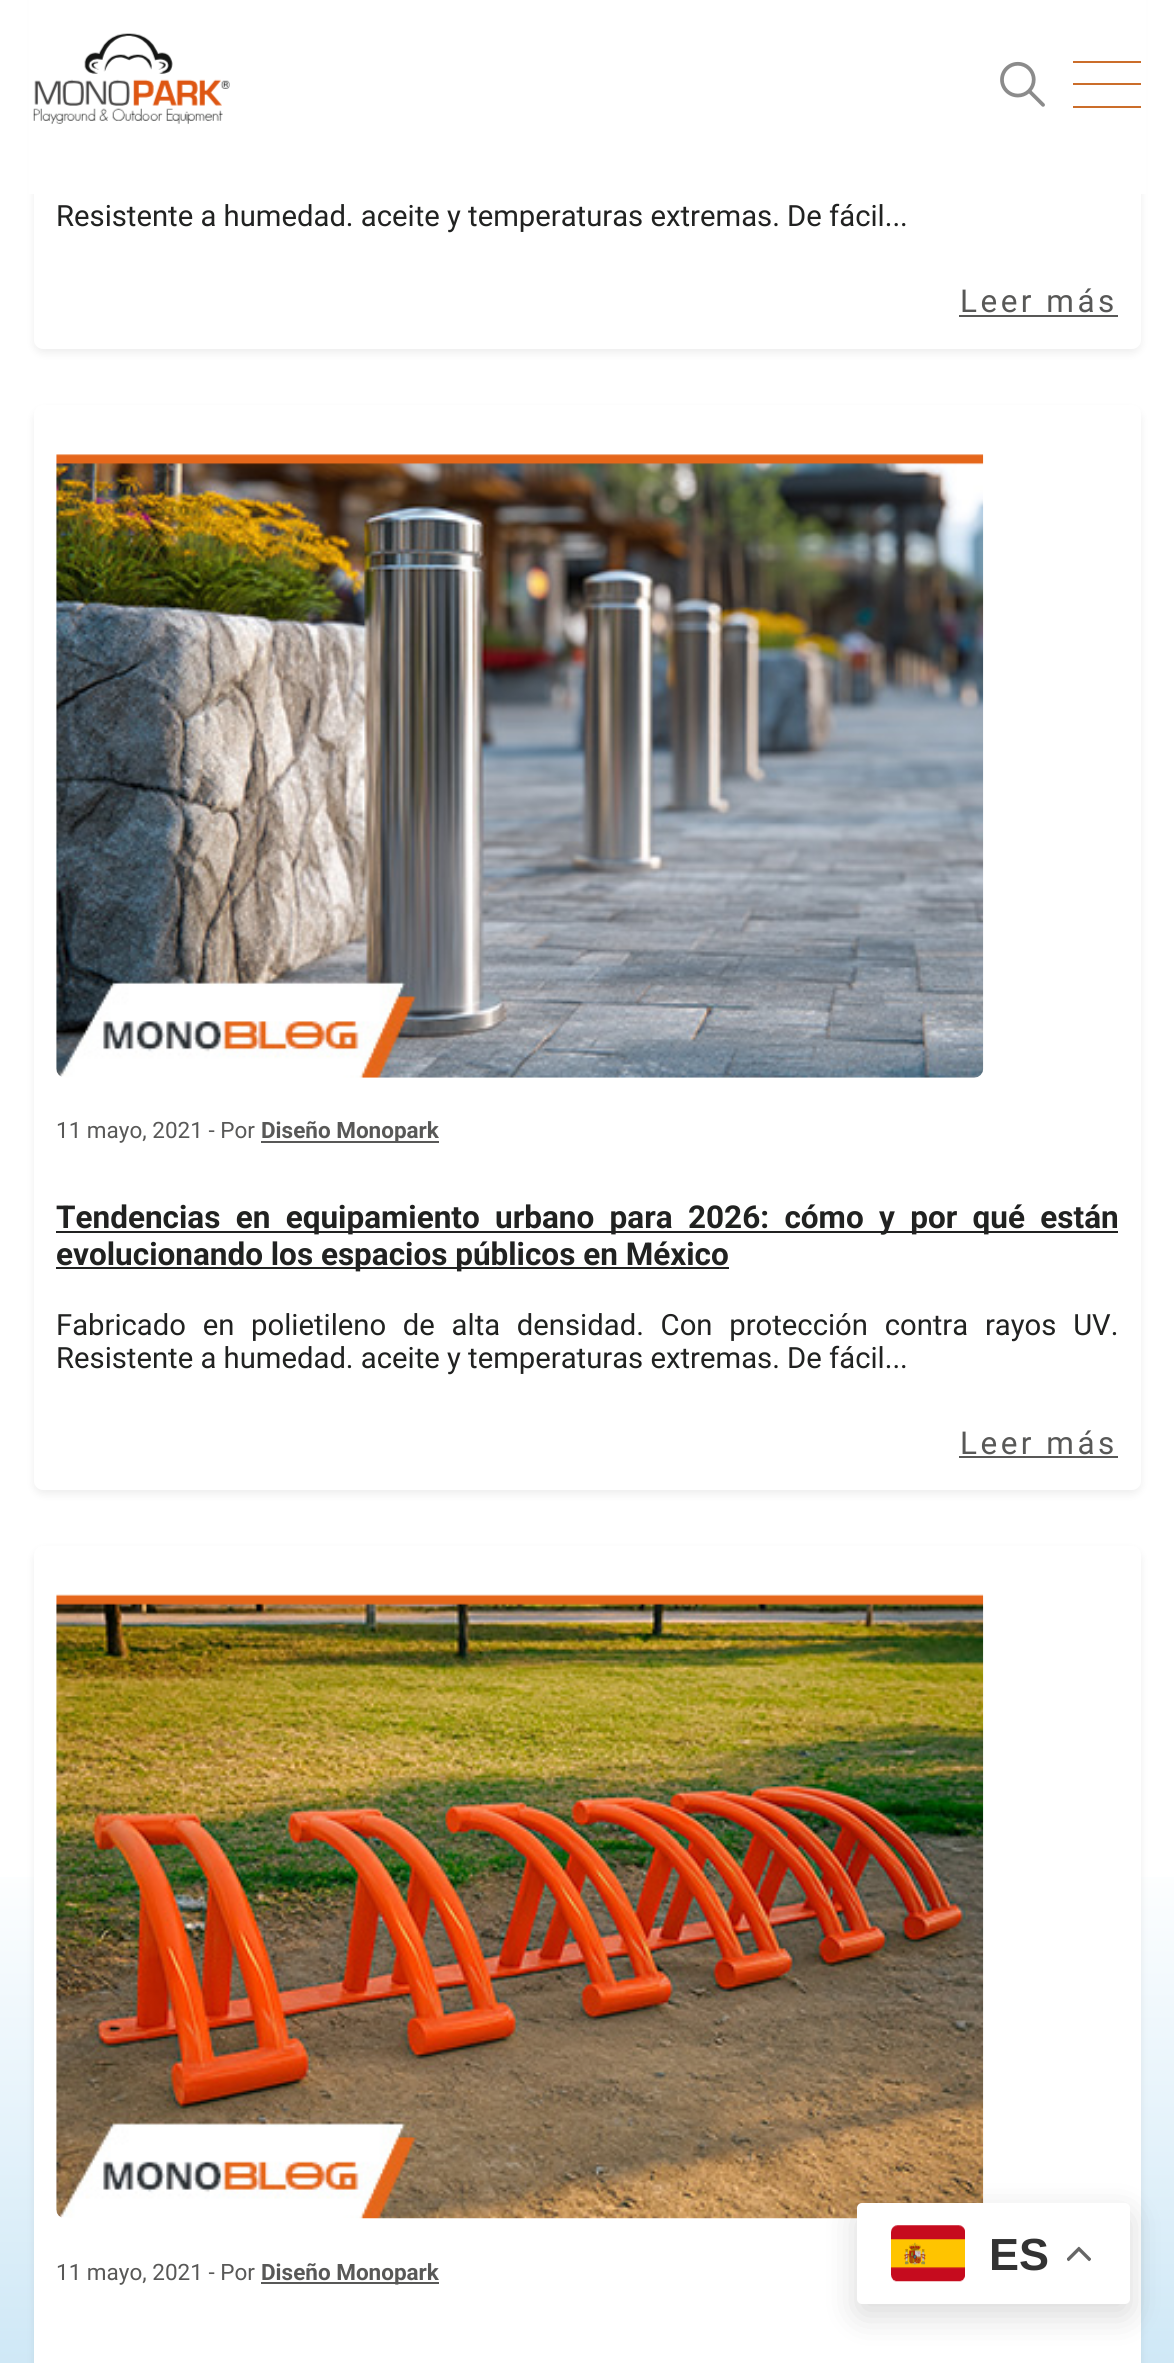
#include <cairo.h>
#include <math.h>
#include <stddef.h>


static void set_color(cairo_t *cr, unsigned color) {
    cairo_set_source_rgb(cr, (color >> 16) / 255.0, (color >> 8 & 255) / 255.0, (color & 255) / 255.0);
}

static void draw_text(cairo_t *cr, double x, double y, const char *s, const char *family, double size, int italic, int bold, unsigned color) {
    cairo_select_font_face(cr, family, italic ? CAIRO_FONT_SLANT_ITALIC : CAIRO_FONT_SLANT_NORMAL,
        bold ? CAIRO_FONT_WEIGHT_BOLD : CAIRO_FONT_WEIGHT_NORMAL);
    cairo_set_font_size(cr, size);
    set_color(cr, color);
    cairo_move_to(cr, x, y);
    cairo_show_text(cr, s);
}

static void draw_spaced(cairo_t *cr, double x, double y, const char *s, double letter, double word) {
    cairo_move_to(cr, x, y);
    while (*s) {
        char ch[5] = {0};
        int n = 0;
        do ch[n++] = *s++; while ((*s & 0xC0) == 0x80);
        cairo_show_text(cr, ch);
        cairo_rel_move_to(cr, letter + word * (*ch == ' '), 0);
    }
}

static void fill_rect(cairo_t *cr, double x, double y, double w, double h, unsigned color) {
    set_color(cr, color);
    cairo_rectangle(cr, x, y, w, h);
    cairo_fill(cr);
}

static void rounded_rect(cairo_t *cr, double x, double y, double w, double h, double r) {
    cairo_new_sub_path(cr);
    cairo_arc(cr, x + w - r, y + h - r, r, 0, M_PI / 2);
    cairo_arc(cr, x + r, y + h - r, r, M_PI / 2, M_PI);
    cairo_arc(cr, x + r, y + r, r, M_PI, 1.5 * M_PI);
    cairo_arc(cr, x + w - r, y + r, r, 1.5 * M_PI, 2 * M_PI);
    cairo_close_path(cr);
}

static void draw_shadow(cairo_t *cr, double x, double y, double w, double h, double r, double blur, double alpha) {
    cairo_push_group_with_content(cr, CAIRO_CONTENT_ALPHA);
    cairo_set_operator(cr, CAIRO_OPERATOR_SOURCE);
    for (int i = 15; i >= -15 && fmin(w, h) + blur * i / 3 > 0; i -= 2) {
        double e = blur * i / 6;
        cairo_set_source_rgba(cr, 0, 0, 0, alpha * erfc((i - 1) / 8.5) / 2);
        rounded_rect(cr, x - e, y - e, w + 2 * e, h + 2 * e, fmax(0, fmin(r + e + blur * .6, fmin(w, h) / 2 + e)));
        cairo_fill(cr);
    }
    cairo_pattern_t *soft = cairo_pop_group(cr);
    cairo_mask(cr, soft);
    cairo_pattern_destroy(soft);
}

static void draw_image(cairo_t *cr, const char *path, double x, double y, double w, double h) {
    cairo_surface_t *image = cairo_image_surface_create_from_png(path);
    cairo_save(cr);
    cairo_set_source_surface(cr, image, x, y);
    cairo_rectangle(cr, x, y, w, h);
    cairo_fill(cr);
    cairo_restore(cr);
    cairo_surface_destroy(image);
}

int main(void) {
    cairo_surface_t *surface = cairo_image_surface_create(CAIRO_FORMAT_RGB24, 1174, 2363);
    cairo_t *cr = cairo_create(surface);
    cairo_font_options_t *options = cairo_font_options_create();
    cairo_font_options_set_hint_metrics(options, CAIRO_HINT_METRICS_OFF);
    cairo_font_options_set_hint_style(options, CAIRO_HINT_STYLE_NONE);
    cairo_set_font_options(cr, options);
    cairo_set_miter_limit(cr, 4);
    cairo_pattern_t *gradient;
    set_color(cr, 0xFFFFFF);
    cairo_paint(cr);
    set_color(cr, 0x000000);
    draw_shadow(cr, 34, -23, 1107, 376, 9, 4.5, 0.07);
    set_color(cr, 0xFFFFFF);
    rounded_rect(cr, 34, -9, 1107, 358, 9);
    cairo_fill(cr);
    fill_rect(cr, 29, 0, 1117, 194, 0xFFFFFF);
    draw_image(cr, "assets/img1.png", 33, 33, 197, 91);
    draw_image(cr, "assets/img2.png", 1000, 61, 45, 46);
    fill_rect(cr, 1073, 61, 68, 2, 0xCB6D2A);
    fill_rect(cr, 1073, 83, 68, 2, 0xCB6D2A);
    fill_rect(cr, 1073, 106, 68, 2, 0xCB6D2A);
    draw_text(cr, 56, 226, "Resistente a humedad. aceite y temperaturas extremas. De fácil...", "Roboto", 29.25, 0, 0, 0x212221);
    cairo_set_font_size(cr, 31.5);
    set_color(cr, 0x585857);
    draw_spaced(cr, 960, 312, "Leer más", 3.5, 0);
    fill_rect(cr, 959, 315, 159, 2, 0x585857);
    set_color(cr, 0x000000);
    draw_shadow(cr, 34, 410, 1107, 1084, 9, 4.5, 0.07);
    set_color(cr, 0xFFFFFF);
    rounded_rect(cr, 34, 405, 1107, 1085, 9);
    cairo_fill(cr);
    draw_image(cr, "assets/img3.png", 56, 454, 928, 624);
    draw_text(cr, 56, 1138, "11 mayo, 2021 - Por", "Roboto", 22.5, 0, 0, 0x585857);
    fill_rect(cr, 261, 1141, 178, 2, 0x585857);
    draw_text(cr, 261, 1138, "Diseño Monopark", "Roboto", 22.5, 0, 1, 0x585857);
    fill_rect(cr, 56, 1231, 1062, 2, 0x212221);
    cairo_set_font_size(cr, 31.5);
    draw_spaced(cr, 56, 1228, "Tendencias en equipamiento urbano para 2026: cómo y por qué están", 0, 7.5);
    fill_rect(cr, 56, 1267, 673, 2, 0x212221);
    draw_text(cr, 56, 1265, "evolucionando los espacios públicos en México", "Roboto", 31.5, 0, 1, 0x212221);
    cairo_select_font_face(cr, "Roboto", CAIRO_FONT_SLANT_NORMAL, CAIRO_FONT_WEIGHT_NORMAL);
    cairo_set_font_size(cr, 29.25);
    draw_spaced(cr, 56, 1335, "Fabricado en polietileno de alta densidad. Con protección contra rayos UV.", 0, 9.5);
    draw_text(cr, 56, 1368, "Resistente a humedad. aceite y temperaturas extremas. De fácil...", "Roboto", 29.25, 0, 0, 0x212221);
    cairo_set_font_size(cr, 31.5);
    set_color(cr, 0x585857);
    draw_spaced(cr, 960, 1454, "Leer más", 3.5, 0);
    fill_rect(cr, 959, 1456, 159, 2, 0x585857);
    gradient = cairo_pattern_create_linear(587, 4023, 587, 1436);
    cairo_pattern_add_color_stop_rgba(gradient, 0.2, 0.396, 0.71, 0.89, 1);
    cairo_pattern_add_color_stop_rgba(gradient, 0.84, 1, 1, 1, 1);
    cairo_set_source(cr, gradient);
    cairo_pattern_destroy(gradient);
    cairo_rectangle(cr, 0, 1877, 1174, 486);
    cairo_fill(cr);
    set_color(cr, 0x000000);
    draw_shadow(cr, 34, 1550, 1107, 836, 9, 4.5, 0.07);
    set_color(cr, 0xFFFFFF);
    rounded_rect(cr, 34, 1546, 1107, 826, 9);
    cairo_fill(cr);
    draw_image(cr, "assets/img4.png", 56, 1594, 928, 625);
    draw_text(cr, 56, 2280, "11 mayo, 2021 - Por", "Roboto", 22.5, 0, 0, 0x585857);
    fill_rect(cr, 261, 2282, 178, 2, 0x585857);
    draw_text(cr, 261, 2280, "Diseño Monopark", "Roboto", 22.5, 0, 1, 0x585857);
    set_color(cr, 0x000000);
    draw_shadow(cr, 857, 2214, 273, 101, 5, 17, 0.15);
    set_color(cr, 0xFFFFFF);
    rounded_rect(cr, 857, 2203, 273, 101, 5);
    cairo_fill(cr);
    draw_image(cr, "assets/img5.png", 891, 2225, 74, 57);
    draw_text(cr, 989, 2270, "ES", "Liberation Sans", 45, 0, 1, 0x333333);
    draw_image(cr, "assets/img6.png", 1067, 2246, 24, 16);
    cairo_surface_write_to_png(surface, "output.png");
    cairo_font_options_destroy(options);
    cairo_destroy(cr);
    cairo_surface_destroy(surface);
    return 0;
}
